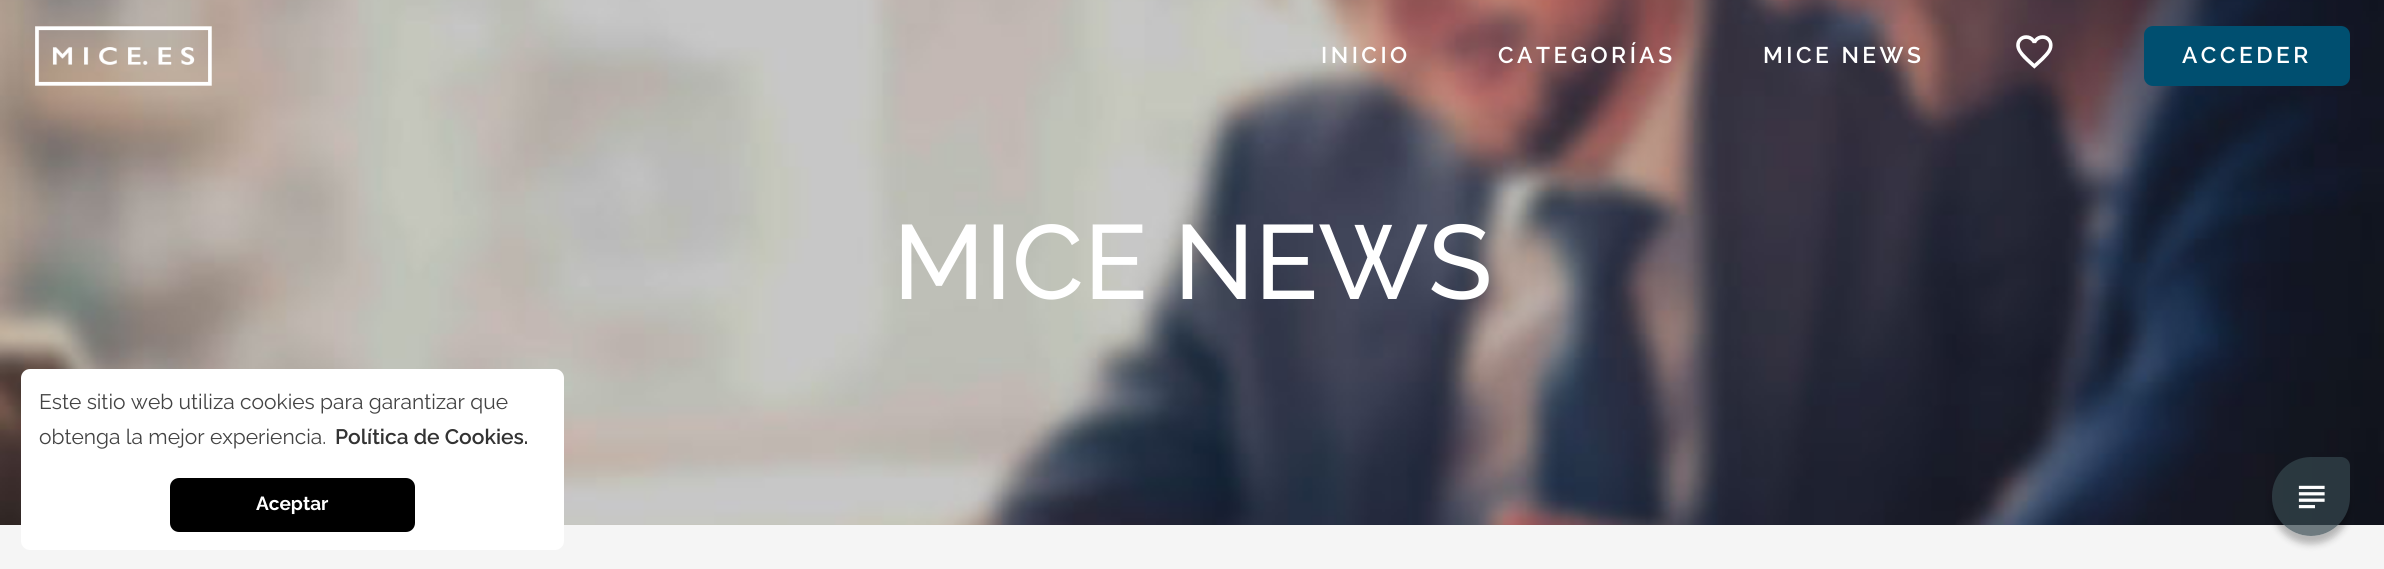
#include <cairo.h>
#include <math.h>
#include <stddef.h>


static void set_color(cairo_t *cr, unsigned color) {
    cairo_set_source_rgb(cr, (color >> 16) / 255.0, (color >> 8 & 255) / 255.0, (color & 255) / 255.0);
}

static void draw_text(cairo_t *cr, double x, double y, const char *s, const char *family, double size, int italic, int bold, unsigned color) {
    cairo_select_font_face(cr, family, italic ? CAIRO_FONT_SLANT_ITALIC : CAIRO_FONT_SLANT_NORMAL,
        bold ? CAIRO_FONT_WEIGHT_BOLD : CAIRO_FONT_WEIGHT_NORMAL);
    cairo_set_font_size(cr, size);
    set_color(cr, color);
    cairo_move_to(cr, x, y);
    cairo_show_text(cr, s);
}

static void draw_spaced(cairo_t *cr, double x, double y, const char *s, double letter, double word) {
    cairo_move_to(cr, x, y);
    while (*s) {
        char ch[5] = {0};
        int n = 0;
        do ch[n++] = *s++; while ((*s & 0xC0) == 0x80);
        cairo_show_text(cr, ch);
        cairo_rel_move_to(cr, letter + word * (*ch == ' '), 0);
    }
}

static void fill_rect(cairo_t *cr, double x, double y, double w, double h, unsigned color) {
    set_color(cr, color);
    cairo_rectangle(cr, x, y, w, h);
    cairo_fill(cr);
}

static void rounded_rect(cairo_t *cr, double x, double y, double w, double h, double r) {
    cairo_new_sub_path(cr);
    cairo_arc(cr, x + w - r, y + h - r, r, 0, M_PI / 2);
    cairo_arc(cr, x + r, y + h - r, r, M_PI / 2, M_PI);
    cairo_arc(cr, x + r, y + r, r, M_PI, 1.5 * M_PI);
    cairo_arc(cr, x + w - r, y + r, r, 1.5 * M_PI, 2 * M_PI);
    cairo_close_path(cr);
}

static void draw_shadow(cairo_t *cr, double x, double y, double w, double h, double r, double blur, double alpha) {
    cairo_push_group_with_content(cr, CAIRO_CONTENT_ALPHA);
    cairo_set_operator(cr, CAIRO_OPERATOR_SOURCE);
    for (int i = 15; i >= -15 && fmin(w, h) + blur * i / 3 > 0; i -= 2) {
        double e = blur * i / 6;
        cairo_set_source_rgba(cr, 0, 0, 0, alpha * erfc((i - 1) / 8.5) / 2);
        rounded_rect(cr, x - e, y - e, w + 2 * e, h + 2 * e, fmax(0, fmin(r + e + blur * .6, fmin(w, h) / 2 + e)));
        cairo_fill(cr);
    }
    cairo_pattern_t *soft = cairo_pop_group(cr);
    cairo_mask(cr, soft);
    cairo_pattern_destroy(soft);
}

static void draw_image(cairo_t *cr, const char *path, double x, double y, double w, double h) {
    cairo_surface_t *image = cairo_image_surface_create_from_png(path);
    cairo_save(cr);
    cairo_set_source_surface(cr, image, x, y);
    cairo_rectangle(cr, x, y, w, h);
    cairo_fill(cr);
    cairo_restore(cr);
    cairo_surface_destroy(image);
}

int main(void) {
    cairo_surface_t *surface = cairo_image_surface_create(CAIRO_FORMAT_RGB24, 2384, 569);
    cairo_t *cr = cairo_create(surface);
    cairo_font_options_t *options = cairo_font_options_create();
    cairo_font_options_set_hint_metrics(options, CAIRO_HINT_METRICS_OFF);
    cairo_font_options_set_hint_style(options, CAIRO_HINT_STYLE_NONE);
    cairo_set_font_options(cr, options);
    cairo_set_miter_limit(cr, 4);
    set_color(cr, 0xFFFFFF);
    cairo_paint(cr);
    draw_image(cr, "assets/img3.png", 0, 0, 2384, 525);
    draw_image(cr, "assets/img1.png", 35, 26, 177, 60);
    cairo_select_font_face(cr, "Raleway SemiBold", CAIRO_FONT_SLANT_NORMAL, CAIRO_FONT_WEIGHT_NORMAL);
    cairo_set_font_size(cr, 22.75);
    set_color(cr, 0xFFFFFF);
    draw_spaced(cr, 1321, 63, "INICIO", 3.5, 0);
    draw_spaced(cr, 1498, 63, "CATEGORÍAS", 3.5, 0);
    draw_spaced(cr, 1763, 63, "MICE NEWS", 3.5, 0);
    draw_image(cr, "assets/img2.png", 2016, 35, 37, 34);
    set_color(cr, 0x004F70);
    rounded_rect(cr, 2144, 26, 206, 60, 9);
    cairo_fill(cr);
    set_color(cr, 0xFFFFFF);
    draw_spaced(cr, 2182, 63, "ACCEDER", 3.5, 0);
    draw_text(cr, 893, 299, "MICE NEWS", "Raleway Medium", 105, 0, 0, 0xFFFFFF);
    fill_rect(cr, 0, 525, 2384, 44, 0xF5F5F5);
    set_color(cr, 0xFFFFFF);
    rounded_rect(cr, 21, 369, 543, 181, 9);
    cairo_fill(cr);
    draw_text(cr, 39, 409, "Este sitio web utiliza cookies para garantizar que", "Raleway", 21, 0, 0, 0x434343);
    draw_text(cr, 39, 444, "obtenga la mejor experiencia.", "Raleway", 21, 0, 0, 0x434343);
    draw_text(cr, 335, 444, "Política de Cookies.", "Raleway SemiBold", 21, 0, 0, 0x333333);
    set_color(cr, 0x000000);
    rounded_rect(cr, 170, 478, 245, 54, 9);
    cairo_fill(cr);
    draw_text(cr, 256, 510, "Aceptar", "Raleway", 19, 0, 1, 0xFFFFFF);
    cairo_save(cr);
    cairo_set_fill_rule(cr, CAIRO_FILL_RULE_EVEN_ODD);
    cairo_new_path(cr);
    cairo_move_to(cr, 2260, 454);
    cairo_line_to(cr, 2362, 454);
    cairo_line_to(cr, 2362, 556);
    cairo_line_to(cr, 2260, 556);
    cairo_close_path(cr);
    cairo_move_to(cr, 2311, 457);
    cairo_line_to(cr, 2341, 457);
    cairo_curve_to(cr, 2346, 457, 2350, 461, 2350, 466);
    cairo_line_to(cr, 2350, 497);
    cairo_curve_to(cr, 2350, 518.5, 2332.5, 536, 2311, 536);
    cairo_curve_to(cr, 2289.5, 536, 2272, 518.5, 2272, 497);
    cairo_line_to(cr, 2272, 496);
    cairo_curve_to(cr, 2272, 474.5, 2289.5, 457, 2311, 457);
    cairo_close_path(cr);
    cairo_clip(cr);
    set_color(cr, 0x000000);
    draw_shadow(cr, 2272, 466, 78, 78, 39, 3.5, 0.26);
    cairo_restore(cr);
    cairo_set_source_rgba(cr, 0.208, 0.278, 0.306, 0.7);
    cairo_new_path(cr);
    cairo_move_to(cr, 2311, 457);
    cairo_line_to(cr, 2341, 457);
    cairo_curve_to(cr, 2346, 457, 2350, 461, 2350, 466);
    cairo_line_to(cr, 2350, 497);
    cairo_curve_to(cr, 2350, 518.5, 2332.5, 536, 2311, 536);
    cairo_curve_to(cr, 2289.5, 536, 2272, 518.5, 2272, 497);
    cairo_line_to(cr, 2272, 496);
    cairo_curve_to(cr, 2272, 474.5, 2289.5, 457, 2311, 457);
    cairo_close_path(cr);
    cairo_fill(cr);
    draw_image(cr, "assets/img4.png", 2298, 485, 27, 24);
    cairo_surface_write_to_png(surface, "output.png");
    cairo_font_options_destroy(options);
    cairo_destroy(cr);
    cairo_surface_destroy(surface);
    return 0;
}
